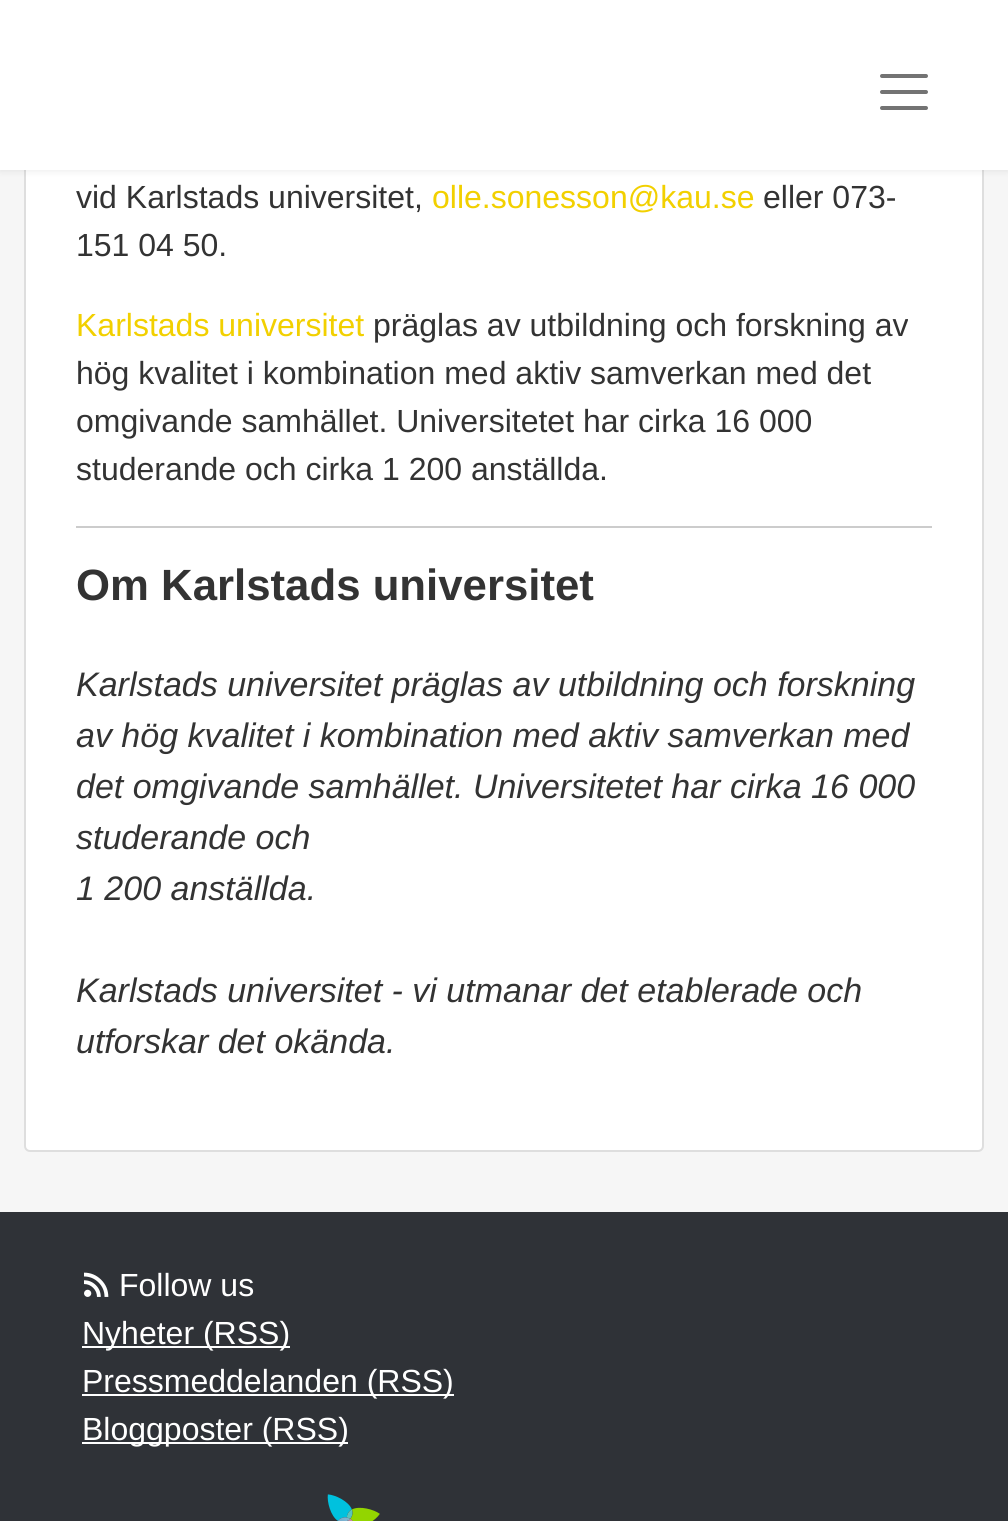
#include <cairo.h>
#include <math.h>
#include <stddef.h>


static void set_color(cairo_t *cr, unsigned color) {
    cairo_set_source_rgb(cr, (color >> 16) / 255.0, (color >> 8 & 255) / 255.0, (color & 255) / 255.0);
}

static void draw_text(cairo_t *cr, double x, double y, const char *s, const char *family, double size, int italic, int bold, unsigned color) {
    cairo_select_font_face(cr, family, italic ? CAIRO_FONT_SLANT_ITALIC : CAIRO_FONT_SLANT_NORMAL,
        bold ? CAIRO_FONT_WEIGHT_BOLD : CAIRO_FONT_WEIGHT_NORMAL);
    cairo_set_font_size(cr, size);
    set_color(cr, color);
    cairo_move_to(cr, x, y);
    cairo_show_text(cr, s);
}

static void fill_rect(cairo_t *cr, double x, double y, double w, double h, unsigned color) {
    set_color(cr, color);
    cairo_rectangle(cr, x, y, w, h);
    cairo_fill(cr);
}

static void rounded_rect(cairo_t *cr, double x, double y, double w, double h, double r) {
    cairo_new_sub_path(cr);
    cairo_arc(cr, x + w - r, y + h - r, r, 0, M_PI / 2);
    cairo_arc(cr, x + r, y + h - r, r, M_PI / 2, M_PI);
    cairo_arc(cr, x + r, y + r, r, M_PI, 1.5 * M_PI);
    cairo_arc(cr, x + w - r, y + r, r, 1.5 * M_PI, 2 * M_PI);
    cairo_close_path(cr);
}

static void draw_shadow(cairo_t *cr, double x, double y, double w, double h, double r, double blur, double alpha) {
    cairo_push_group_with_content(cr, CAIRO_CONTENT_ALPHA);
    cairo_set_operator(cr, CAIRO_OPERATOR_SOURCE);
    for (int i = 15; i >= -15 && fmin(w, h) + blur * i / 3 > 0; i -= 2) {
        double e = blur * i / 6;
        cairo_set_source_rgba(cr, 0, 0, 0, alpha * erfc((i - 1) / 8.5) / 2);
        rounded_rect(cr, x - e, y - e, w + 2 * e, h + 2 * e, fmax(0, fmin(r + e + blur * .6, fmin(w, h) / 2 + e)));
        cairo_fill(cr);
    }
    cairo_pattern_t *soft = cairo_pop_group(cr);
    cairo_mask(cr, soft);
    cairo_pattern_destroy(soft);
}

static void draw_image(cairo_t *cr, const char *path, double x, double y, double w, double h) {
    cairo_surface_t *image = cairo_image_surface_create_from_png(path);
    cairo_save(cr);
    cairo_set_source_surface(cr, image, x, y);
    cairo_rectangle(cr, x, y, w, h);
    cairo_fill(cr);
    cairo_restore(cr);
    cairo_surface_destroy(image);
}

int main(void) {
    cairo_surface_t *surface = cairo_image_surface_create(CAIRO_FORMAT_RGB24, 1008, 1521);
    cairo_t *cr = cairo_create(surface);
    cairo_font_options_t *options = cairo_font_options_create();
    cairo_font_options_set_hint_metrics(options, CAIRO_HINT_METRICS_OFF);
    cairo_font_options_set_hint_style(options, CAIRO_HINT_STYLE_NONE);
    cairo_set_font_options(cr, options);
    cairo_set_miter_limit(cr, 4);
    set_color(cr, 0x2F3237);
    cairo_paint(cr);
    fill_rect(cr, 0, 170, 1008, 1042, 0xF6F6F6);
    set_color(cr, 0xFFFFFF);
    rounded_rect(cr, 25, -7, 958, 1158, 5);
    cairo_fill_preserve(cr);
    set_color(cr, 0xDEDEDE);
    cairo_stroke(cr);
    set_color(cr, 0x000000);
    draw_shadow(cr, 0, 0, 1008, 170, 0, 4, 0.1);
    fill_rect(cr, 0, 0, 1008, 170, 0xFFFFFF);
    cairo_new_path(cr);
    cairo_move_to(cr, 882, 76);
    cairo_line_to(cr, 926, 76);
    cairo_move_to(cr, 882, 92);
    cairo_line_to(cr, 926, 92);
    cairo_move_to(cr, 882, 108);
    cairo_line_to(cr, 926, 108);
    set_color(cr, 0x737373);
    cairo_set_line_width(cr, 4);
    cairo_set_line_cap(cr, CAIRO_LINE_CAP_ROUND);
    cairo_stroke(cr);
    draw_text(cr, 76, 208, "vid Karlstads universitet,", "Liberation Sans", 32, 0, 0, 0x333333);
    draw_text(cr, 432, 208, "olle.sonesson@kau.se", "Liberation Sans", 32, 0, 0, 0xF2D000);
    draw_text(cr, 763, 208, "eller 073-", "Liberation Sans", 32, 0, 0, 0x333333);
    draw_text(cr, 76, 256, "151 04 50.", "Liberation Sans", 32, 0, 0, 0x333333);
    draw_text(cr, 76, 336, "Karlstads universitet", "Liberation Sans", 32, 0, 0, 0xF2D000);
    draw_text(cr, 373, 336, "präglas av utbildning och forskning av", "Liberation Sans", 32, 0, 0, 0x333333);
    draw_text(cr, 76, 384, "hög kvalitet i kombination med aktiv samverkan med det", "Liberation Sans", 32, 0, 0, 0x333333);
    draw_text(cr, 76, 432, "omgivande samhället. Universitetet har cirka 16 000", "Liberation Sans", 32, 0, 0, 0x333333);
    draw_text(cr, 76, 480, "studerande och cirka 1 200 anställda.", "Liberation Sans", 32, 0, 0, 0x333333);
    fill_rect(cr, 76, 526, 856, 2, 0xCCCCCC);
    draw_text(cr, 76, 600, "Om Karlstads universitet", "Liberation Sans", 43.75, 0, 1, 0x333333);
    draw_text(cr, 76, 696, "Karlstads universitet präglas av utbildning och forskning", "Liberation Sans", 34, 1, 0, 0x333333);
    draw_text(cr, 76, 747, "av hög kvalitet i kombination med aktiv samverkan med", "Liberation Sans", 34, 1, 0, 0x333333);
    draw_text(cr, 76, 798, "det omgivande samhället. Universitetet har cirka 16 000", "Liberation Sans", 34, 1, 0, 0x333333);
    draw_text(cr, 76, 849, "studerande och", "Liberation Sans", 34, 1, 0, 0x333333);
    draw_text(cr, 76, 900, "1 200 anställda.", "Liberation Sans", 34, 1, 0, 0x333333);
    draw_text(cr, 76, 1002, "Karlstads universitet - vi utmanar det etablerade och", "Liberation Sans", 34, 1, 0, 0x333333);
    draw_text(cr, 76, 1053, "utforskar det okända.", "Liberation Sans", 34, 1, 0, 0x333333);
    draw_image(cr, "assets/img1.png", 84, 1272, 25, 25);
    draw_text(cr, 119, 1296, "Follow us", "Liberation Sans", 32, 0, 0, 0xFFFFFF);
    fill_rect(cr, 82, 1346, 208, 2, 0xFFFFFF);
    draw_text(cr, 82, 1344, "Nyheter (RSS)", "Liberation Sans", 32, 0, 0, 0xFFFFFF);
    fill_rect(cr, 82, 1394, 372, 2, 0xFFFFFF);
    draw_text(cr, 82, 1392, "Pressmeddelanden (RSS)", "Liberation Sans", 32, 0, 0, 0xFFFFFF);
    fill_rect(cr, 82, 1442, 266, 2, 0xFFFFFF);
    draw_text(cr, 82, 1440, "Bloggposter (RSS)", "Liberation Sans", 32, 0, 0, 0xFFFFFF);
    draw_image(cr, "assets/img2.png", 327, 1494, 53, 27);
    cairo_surface_write_to_png(surface, "output.png");
    cairo_font_options_destroy(options);
    cairo_destroy(cr);
    cairo_surface_destroy(surface);
    return 0;
}
